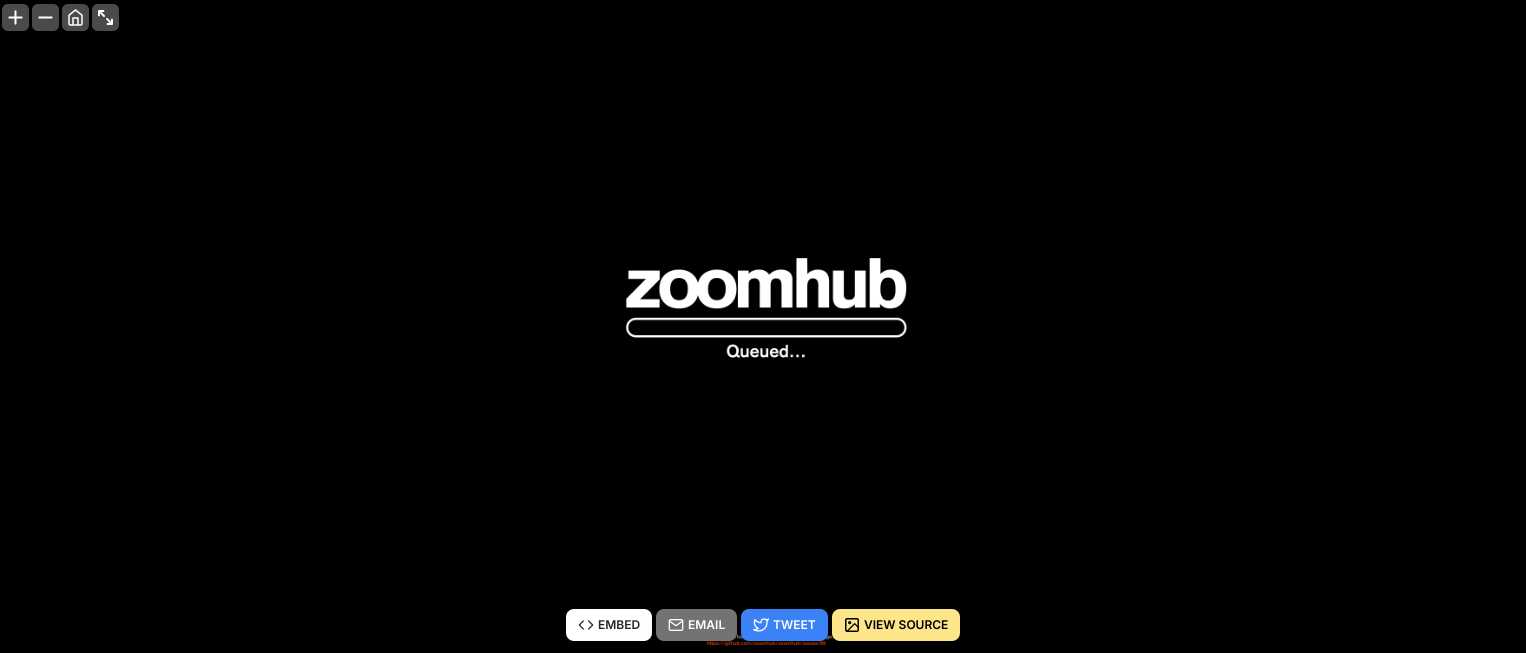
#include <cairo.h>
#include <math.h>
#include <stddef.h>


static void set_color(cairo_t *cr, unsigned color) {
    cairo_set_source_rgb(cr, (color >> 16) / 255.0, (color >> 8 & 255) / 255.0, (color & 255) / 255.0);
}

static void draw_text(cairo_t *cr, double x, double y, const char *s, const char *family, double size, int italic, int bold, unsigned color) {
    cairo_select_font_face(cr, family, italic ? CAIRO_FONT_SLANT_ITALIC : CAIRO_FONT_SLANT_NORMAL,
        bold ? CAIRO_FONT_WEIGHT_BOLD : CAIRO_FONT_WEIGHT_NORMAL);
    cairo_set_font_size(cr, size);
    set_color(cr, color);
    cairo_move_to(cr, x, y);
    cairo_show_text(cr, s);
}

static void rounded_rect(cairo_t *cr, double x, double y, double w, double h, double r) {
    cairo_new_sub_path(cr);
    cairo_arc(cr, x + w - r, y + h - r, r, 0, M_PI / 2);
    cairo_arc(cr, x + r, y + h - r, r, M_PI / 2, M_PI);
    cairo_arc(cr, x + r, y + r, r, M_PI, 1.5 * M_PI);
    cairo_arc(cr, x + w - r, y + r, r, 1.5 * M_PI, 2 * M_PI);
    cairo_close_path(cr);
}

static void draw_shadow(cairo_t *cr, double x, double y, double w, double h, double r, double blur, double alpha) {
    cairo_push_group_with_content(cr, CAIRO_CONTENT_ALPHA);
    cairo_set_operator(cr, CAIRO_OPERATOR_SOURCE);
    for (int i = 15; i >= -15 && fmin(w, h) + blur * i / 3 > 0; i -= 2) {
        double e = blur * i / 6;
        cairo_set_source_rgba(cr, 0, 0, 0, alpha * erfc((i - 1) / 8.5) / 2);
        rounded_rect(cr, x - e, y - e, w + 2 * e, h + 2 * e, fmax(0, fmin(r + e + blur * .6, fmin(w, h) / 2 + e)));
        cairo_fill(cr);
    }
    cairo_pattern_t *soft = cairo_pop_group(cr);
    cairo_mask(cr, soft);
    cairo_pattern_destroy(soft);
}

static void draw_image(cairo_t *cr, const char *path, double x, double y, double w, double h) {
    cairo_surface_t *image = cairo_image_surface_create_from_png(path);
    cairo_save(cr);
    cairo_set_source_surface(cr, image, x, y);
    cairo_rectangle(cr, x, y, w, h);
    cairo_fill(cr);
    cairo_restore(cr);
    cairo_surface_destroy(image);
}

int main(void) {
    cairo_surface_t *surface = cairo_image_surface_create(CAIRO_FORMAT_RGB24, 1526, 653);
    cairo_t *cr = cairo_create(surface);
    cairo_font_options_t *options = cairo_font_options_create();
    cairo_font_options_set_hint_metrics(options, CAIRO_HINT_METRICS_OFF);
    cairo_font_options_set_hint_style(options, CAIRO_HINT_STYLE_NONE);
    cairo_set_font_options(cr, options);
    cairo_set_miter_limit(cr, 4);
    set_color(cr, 0x000000);
    cairo_paint(cr);
    draw_image(cr, "assets/img1.png", 2, 4, 27, 27);
    draw_image(cr, "assets/img2.png", 2, 4, 27, 27);
    draw_image(cr, "assets/img3.png", 32, 4, 27, 27);
    draw_image(cr, "assets/img4.png", 32, 4, 27, 27);
    draw_image(cr, "assets/img5.png", 62, 4, 27, 27);
    draw_image(cr, "assets/img6.png", 62, 4, 27, 27);
    draw_image(cr, "assets/img7.png", 92, 4, 27, 27);
    draw_image(cr, "assets/img8.png", 92, 4, 27, 27);
    draw_image(cr, "assets/img9.png", 625, 258, 283, 388);
    set_color(cr, 0xFFFFFF);
    rounded_rect(cr, 566, 609, 86, 32, 8);
    cairo_fill(cr);
    draw_image(cr, "assets/img10.png", 578, 620, 16, 10);
    draw_text(cr, 598, 629, "EMBED", "Inter SemiBold", 12, 0, 0, 0x262626);
    set_color(cr, 0x000000);
    draw_shadow(cr, 659, 622, 75, 26, 5, 7.5, 0.1);
    set_color(cr, 0x737373);
    rounded_rect(cr, 656, 609, 81, 32, 8);
    cairo_fill(cr);
    draw_image(cr, "assets/img11.png", 668, 619, 16, 12);
    draw_text(cr, 688, 629, "EMAIL", "Inter SemiBold", 12, 0, 0, 0xFFFFFF);
    set_color(cr, 0x000000);
    draw_shadow(cr, 744, 622, 81, 26, 5, 7.5, 0.1);
    set_color(cr, 0x3B82F6);
    rounded_rect(cr, 741, 609, 87, 32, 8);
    cairo_fill(cr);
    draw_image(cr, "assets/img12.png", 753, 618, 16, 14);
    draw_text(cr, 773, 629, "TWEET", "Inter SemiBold", 12, 0, 0, 0xFFFFFF);
    set_color(cr, 0xFDE68A);
    rounded_rect(cr, 832, 609, 128, 32, 8);
    cairo_fill(cr);
    draw_image(cr, "assets/img13.png", 845, 618, 14, 14);
    draw_text(cr, 864, 629, "VIEW SOURCE", "Inter SemiBold", 12, 0, 0, 0x000000);
    cairo_surface_write_to_png(surface, "output.png");
    cairo_font_options_destroy(options);
    cairo_destroy(cr);
    cairo_surface_destroy(surface);
    return 0;
}
